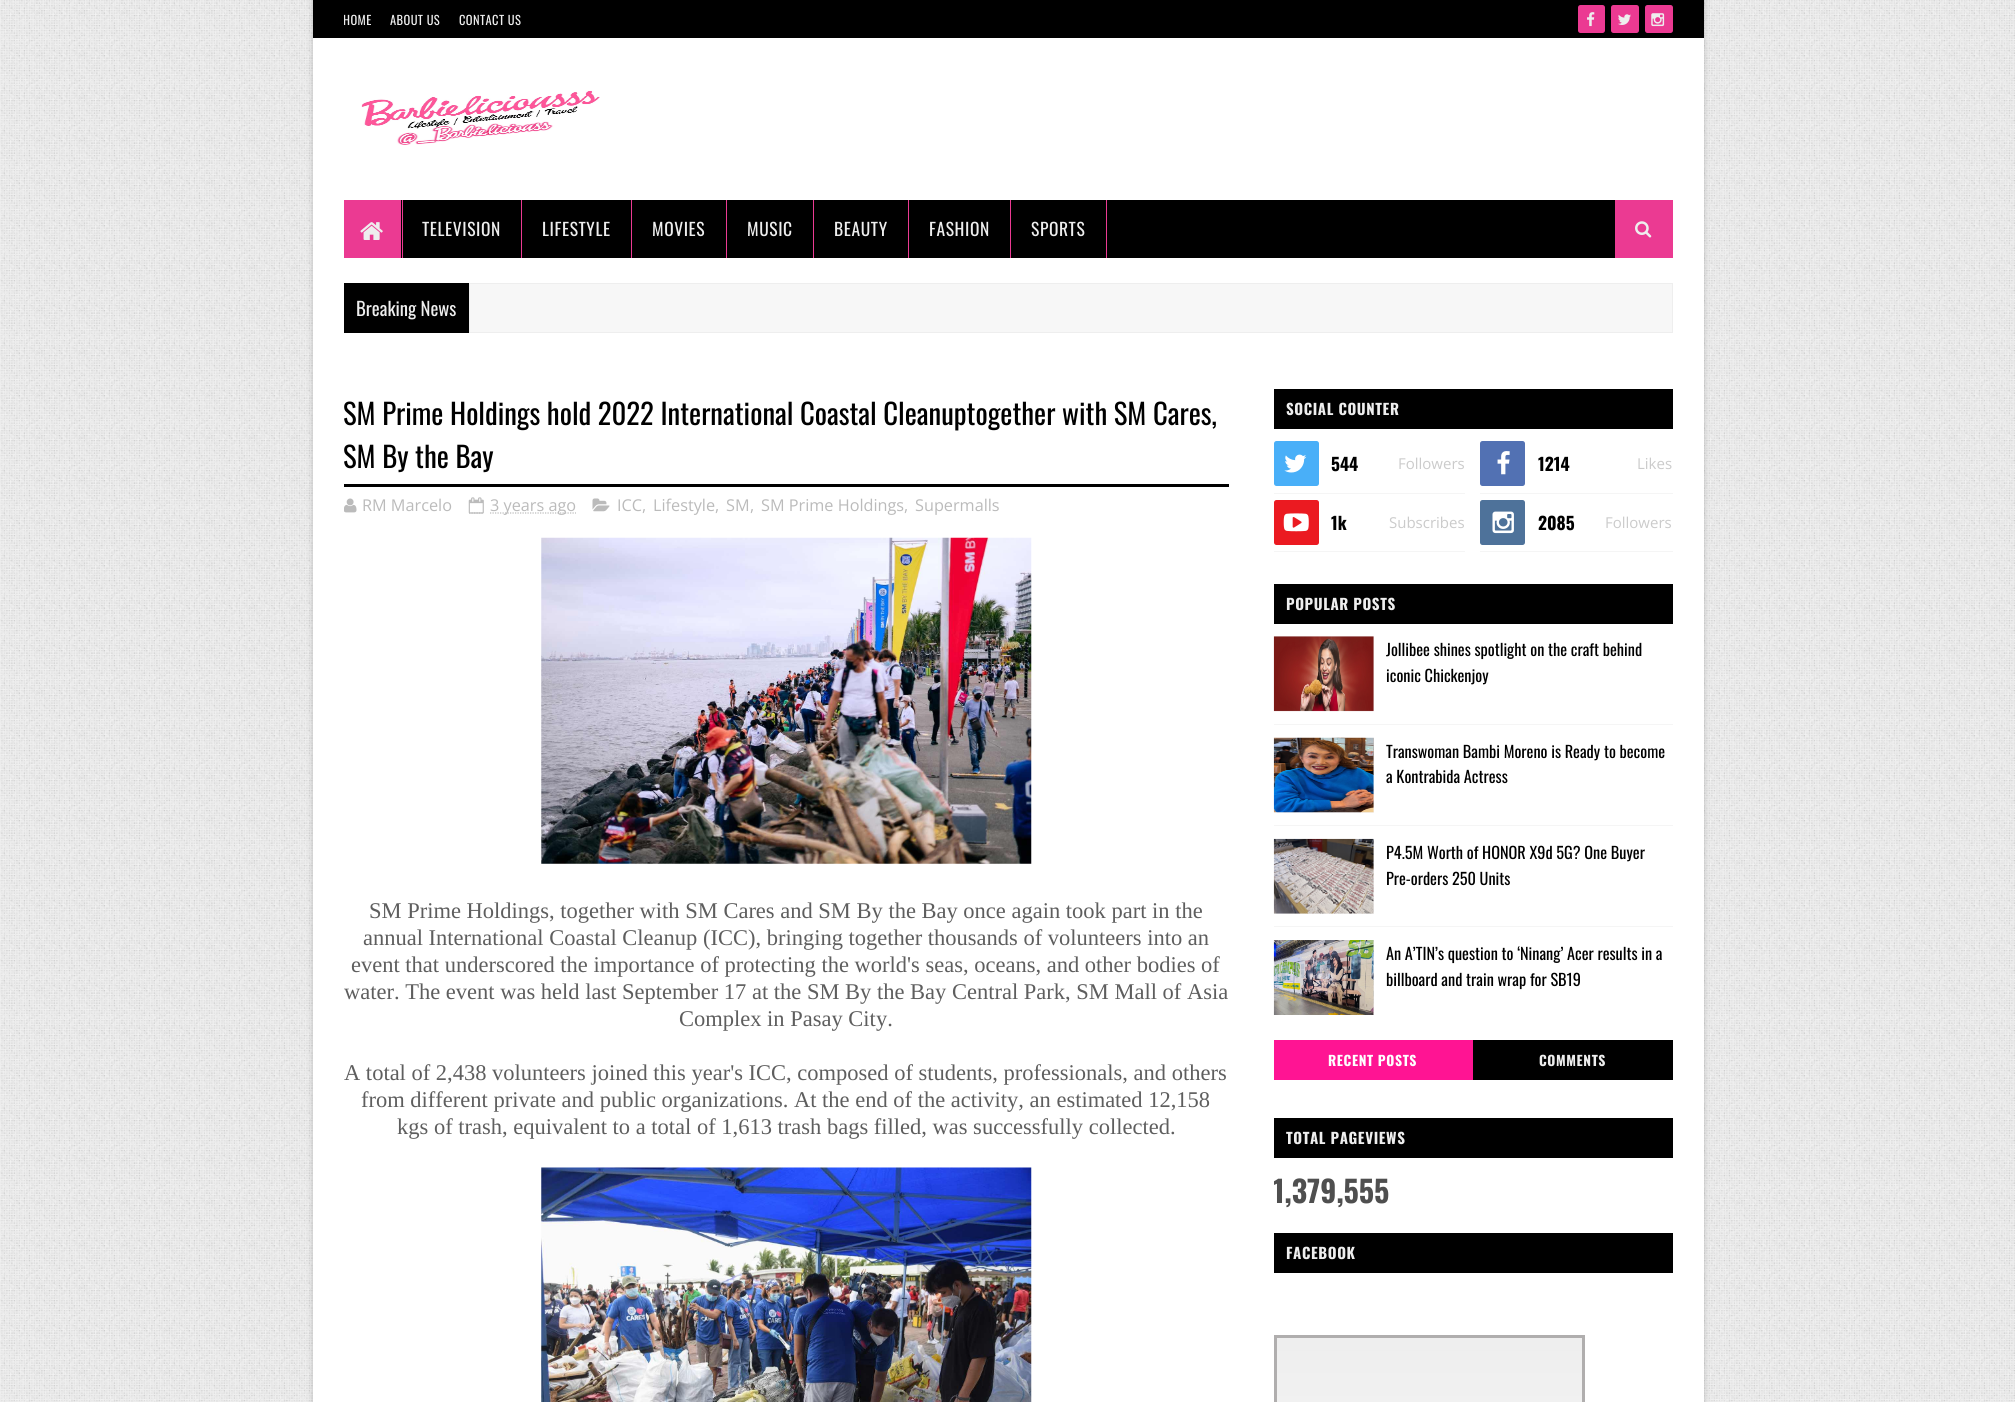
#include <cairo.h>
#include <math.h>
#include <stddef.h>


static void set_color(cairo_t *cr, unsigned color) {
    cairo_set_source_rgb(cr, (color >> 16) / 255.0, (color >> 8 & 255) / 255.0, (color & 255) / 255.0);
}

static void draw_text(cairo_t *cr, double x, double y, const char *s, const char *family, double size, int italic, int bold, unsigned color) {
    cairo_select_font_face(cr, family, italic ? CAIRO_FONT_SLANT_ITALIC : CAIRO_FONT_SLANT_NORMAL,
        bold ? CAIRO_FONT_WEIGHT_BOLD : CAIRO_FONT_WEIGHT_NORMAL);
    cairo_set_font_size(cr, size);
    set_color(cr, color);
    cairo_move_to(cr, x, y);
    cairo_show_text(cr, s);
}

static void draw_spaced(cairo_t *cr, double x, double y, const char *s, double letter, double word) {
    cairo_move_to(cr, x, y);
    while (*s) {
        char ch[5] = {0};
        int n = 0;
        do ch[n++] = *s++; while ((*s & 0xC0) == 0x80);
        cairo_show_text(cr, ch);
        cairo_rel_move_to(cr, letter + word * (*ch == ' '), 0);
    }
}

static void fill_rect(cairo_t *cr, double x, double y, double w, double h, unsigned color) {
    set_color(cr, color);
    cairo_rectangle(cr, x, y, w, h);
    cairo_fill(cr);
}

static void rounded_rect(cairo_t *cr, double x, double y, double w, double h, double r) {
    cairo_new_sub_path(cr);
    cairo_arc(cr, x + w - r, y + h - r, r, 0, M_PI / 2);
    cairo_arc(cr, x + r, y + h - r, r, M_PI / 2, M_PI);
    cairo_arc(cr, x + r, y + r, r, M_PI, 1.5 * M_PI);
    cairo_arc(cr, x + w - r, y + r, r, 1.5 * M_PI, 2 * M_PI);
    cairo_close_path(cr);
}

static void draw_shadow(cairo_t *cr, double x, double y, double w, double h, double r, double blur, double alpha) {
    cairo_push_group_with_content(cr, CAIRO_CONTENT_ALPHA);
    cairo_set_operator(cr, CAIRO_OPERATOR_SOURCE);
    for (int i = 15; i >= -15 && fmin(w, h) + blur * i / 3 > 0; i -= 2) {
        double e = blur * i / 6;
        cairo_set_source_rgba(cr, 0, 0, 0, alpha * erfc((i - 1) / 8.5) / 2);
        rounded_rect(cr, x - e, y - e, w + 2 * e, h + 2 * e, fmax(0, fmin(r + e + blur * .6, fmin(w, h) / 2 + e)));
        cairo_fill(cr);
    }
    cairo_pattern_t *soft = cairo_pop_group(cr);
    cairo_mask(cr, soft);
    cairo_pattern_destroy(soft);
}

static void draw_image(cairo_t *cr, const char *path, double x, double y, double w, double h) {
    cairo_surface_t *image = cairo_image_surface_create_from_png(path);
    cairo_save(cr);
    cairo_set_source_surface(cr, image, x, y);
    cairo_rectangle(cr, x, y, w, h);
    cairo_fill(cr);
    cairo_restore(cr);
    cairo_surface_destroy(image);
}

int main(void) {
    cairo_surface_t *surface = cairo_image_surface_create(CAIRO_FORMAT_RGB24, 2015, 1402);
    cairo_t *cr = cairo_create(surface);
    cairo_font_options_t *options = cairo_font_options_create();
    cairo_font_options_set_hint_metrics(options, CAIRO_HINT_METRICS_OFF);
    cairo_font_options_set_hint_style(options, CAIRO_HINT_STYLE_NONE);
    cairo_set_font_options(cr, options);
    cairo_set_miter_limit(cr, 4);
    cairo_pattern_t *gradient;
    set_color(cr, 0xFFFFFF);
    cairo_paint(cr);
    draw_image(cr, "assets/img1.png", 0, 0, 2015, 1402);
    set_color(cr, 0x000000);
    draw_shadow(cr, 313, 0, 1391, 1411, 0, 3, 0.2);
    fill_rect(cr, 313, 38, 1391, 1364, 0xFFFFFF);
    fill_rect(cr, 313, 0, 1391, 38, 0x000000);
    cairo_save(cr);
    cairo_rectangle(cr, 344, 0, 1329, 38);
    cairo_clip(cr);
    cairo_select_font_face(cr, "Oswald", CAIRO_FONT_SLANT_NORMAL, CAIRO_FONT_WEIGHT_NORMAL);
    cairo_set_font_size(cr, 12.5);
    set_color(cr, 0xEEEEEE);
    draw_spaced(cr, 343, 25, "HOME", 0.4, 0);
    cairo_restore(cr);
    cairo_select_font_face(cr, "Oswald", CAIRO_FONT_SLANT_NORMAL, CAIRO_FONT_WEIGHT_NORMAL);
    cairo_set_font_size(cr, 12.5);
    set_color(cr, 0xEEEEEE);
    draw_spaced(cr, 390, 25, "ABOUT US", 0.4, 0);
    draw_spaced(cr, 459, 25, "CONTACT US", 0.4, 0);
    set_color(cr, 0xEB3A92);
    rounded_rect(cr, 1578, 5, 27, 28, 2.5);
    cairo_fill(cr);
    draw_image(cr, "assets/img2.png", 1587, 12, 8, 15);
    rounded_rect(cr, 1611, 5, 28, 28, 2.5);
    cairo_fill(cr);
    draw_image(cr, "assets/img3.png", 1618, 14, 13, 11);
    rounded_rect(cr, 1645, 5, 28, 28, 2.5);
    cairo_fill(cr);
    draw_image(cr, "assets/img4.png", 1651, 13, 14, 14);
    draw_image(cr, "assets/img5.png", 361, 90, 239, 55);
    fill_rect(cr, 403, 200, 1212, 58, 0x000000);
    fill_rect(cr, 344, 200, 59, 58, 0xEB3A92);
    fill_rect(cr, 401, 200, 1, 58, 0x000000);
    draw_image(cr, "assets/img6.png", 360, 222, 23, 18);
    fill_rect(cr, 521, 200, 1, 58, 0xEB3A92);
    cairo_set_font_size(cr, 17.5);
    set_color(cr, 0xEEEEEE);
    draw_spaced(cr, 422, 236, "TELEVISION", 0.6, 0);
    fill_rect(cr, 631, 200, 1, 58, 0xEB3A92);
    set_color(cr, 0xEEEEEE);
    draw_spaced(cr, 542, 236, "LIFESTYLE", 0.6, 0);
    fill_rect(cr, 726, 200, 1, 58, 0xEB3A92);
    set_color(cr, 0xEEEEEE);
    draw_spaced(cr, 652, 236, "MOVIES", 0.6, 0);
    fill_rect(cr, 813, 200, 1, 58, 0xEB3A92);
    set_color(cr, 0xEEEEEE);
    draw_spaced(cr, 747, 236, "MUSIC", 0.6, 0);
    fill_rect(cr, 908, 200, 1, 58, 0xEB3A92);
    set_color(cr, 0xEEEEEE);
    draw_spaced(cr, 834, 236, "BEAUTY", 0.6, 0);
    fill_rect(cr, 1010, 200, 1, 58, 0xEB3A92);
    set_color(cr, 0xEEEEEE);
    draw_spaced(cr, 929, 236, "FASHION", 0.6, 0);
    fill_rect(cr, 1106, 200, 1, 58, 0xEB3A92);
    set_color(cr, 0xEEEEEE);
    draw_spaced(cr, 1031, 236, "SPORTS", 0.6, 0);
    fill_rect(cr, 1615, 200, 58, 58, 0xEB3A92);
    draw_image(cr, "assets/img7.png", 1635, 221, 17, 17);
    fill_rect(cr, 344, 283, 125, 50, 0x000000);
    draw_text(cr, 356, 316, "Breaking News", "Oswald", 18.75, 0, 0, 0xEEEEEE);
    set_color(cr, 0xF7F7F7);
    cairo_rectangle(cr, 469.5, 283.5, 1203, 49);
    cairo_fill_preserve(cr);
    set_color(cr, 0xEEEEEE);
    cairo_set_line_width(cr, 1);
    cairo_stroke(cr);
    fill_rect(cr, 344, 484, 885, 3, 0x000000);
    draw_text(cr, 343, 425, "SM Prime Holdings hold 2022 International Coastal Cleanuptogether with SM Cares,", "Oswald", 28.75, 0, 0, 0x000000);
    draw_text(cr, 343, 468, "SM By the Bay", "Oswald", 28.75, 0, 0, 0x000000);
    draw_image(cr, "assets/img8.png", 344, 498, 13, 15);
    draw_text(cr, 362, 511, "RM Marcelo", "Open Sans", 16.25, 0, 0, 0xBBBBBB);
    cairo_new_path(cr);
    cairo_move_to(cr, 469, 513);
    cairo_line_to(cr, 484, 513);
    cairo_set_line_width(cr, 1.2);
    cairo_set_dash(cr, (double[]){1.25, 1.25}, 2, 0);
    cairo_stroke(cr);
    draw_image(cr, "assets/img9.png", 468, 497, 16, 17);
    cairo_new_path(cr);
    cairo_move_to(cr, 490, 513);
    cairo_line_to(cr, 576, 513);
    cairo_stroke(cr);
    draw_text(cr, 490, 511, "3 years ago", "Open Sans", 16.25, 0, 0, 0xBBBBBB);
    draw_image(cr, "assets/img10.png", 592, 498, 18, 14);
    draw_text(cr, 617, 511, "ICC", "Open Sans", 16.25, 0, 0, 0xBBBBBB);
    draw_text(cr, 642, 511, ",", "Open Sans", 16.25, 0, 0, 0xBBBBBB);
    draw_text(cr, 653, 511, "Lifestyle", "Open Sans", 16.25, 0, 0, 0xBBBBBB);
    draw_text(cr, 715, 511, ",", "Open Sans", 16.25, 0, 0, 0xBBBBBB);
    draw_text(cr, 726, 511, "SM", "Open Sans", 16.25, 0, 0, 0xBBBBBB);
    draw_text(cr, 750, 511, ",", "Open Sans", 16.25, 0, 0, 0xBBBBBB);
    draw_text(cr, 761, 511, "SM Prime Holdings", "Open Sans", 16.25, 0, 0, 0xBBBBBB);
    draw_text(cr, 904, 511, ",", "Open Sans", 16.25, 0, 0, 0xBBBBBB);
    draw_text(cr, 915, 511, "Supermalls", "Open Sans", 16.25, 0, 0, 0xBBBBBB);
    draw_image(cr, "assets/img11.png", 541, 537, 491, 327);
    draw_text(cr, 369, 918, "SM Prime Holdings, together with SM Cares and SM By the Bay once again took part in the", "Liberation Serif", 22.5, 0, 0, 0x5E5E5E);
    draw_text(cr, 363, 945, "annual International Coastal Cleanup (ICC), bringing together thousands of volunteers into an", "Liberation Serif", 22.5, 0, 0, 0x5E5E5E);
    draw_text(cr, 351, 972, "event that underscored the importance of protecting the world's seas, oceans, and other bodies of", "Liberation Serif", 22.5, 0, 0, 0x5E5E5E);
    draw_text(cr, 344, 999, "water. The event was held last September 17 at the SM By the Bay Central Park, SM Mall of Asia", "Liberation Serif", 22.5, 0, 0, 0x5E5E5E);
    draw_text(cr, 679, 1026, "Complex in Pasay City.", "Liberation Serif", 22.5, 0, 0, 0x5E5E5E);
    draw_text(cr, 344, 1080, "A total of 2,438 volunteers joined this year's ICC, composed of students, professionals, and others", "Liberation Serif", 22.5, 0, 0, 0x5E5E5E);
    draw_text(cr, 361, 1107, "from different private and public organizations. At the end of the activity, an estimated 12,158", "Liberation Serif", 22.5, 0, 0, 0x5E5E5E);
    draw_text(cr, 397, 1134, "kgs of trash, equivalent to a total of 1,613 trash bags filled, was successfully collected.", "Liberation Serif", 22.5, 0, 0, 0x5E5E5E);
    draw_image(cr, "assets/img12.png", 541, 1167, 491, 235);
    fill_rect(cr, 1274, 389, 399, 40, 0x000000);
    cairo_select_font_face(cr, "Oswald", CAIRO_FONT_SLANT_NORMAL, CAIRO_FONT_WEIGHT_BOLD);
    cairo_set_font_size(cr, 15);
    set_color(cr, 0xEEEEEE);
    draw_spaced(cr, 1286, 415, "SOCIAL COUNTER", 0.6, 0);
    fill_rect(cr, 1274, 493, 191, 1, 0xF5F5F5);
    set_color(cr, 0x49AFF8);
    rounded_rect(cr, 1274, 441, 45, 45, 2.5);
    cairo_fill(cr);
    draw_image(cr, "assets/img13.png", 1284, 454, 23, 19);
    draw_text(cr, 1331, 471, "544", "Oswald", 17.5, 0, 1, 0x000000);
    draw_text(cr, 1398, 469, "Followers", "Open Sans", 15, 0, 0, 0xCBCBCB);
    fill_rect(cr, 1480, 493, 193, 1, 0xF5F5F5);
    set_color(cr, 0x5271B3);
    rounded_rect(cr, 1480, 441, 45, 45, 2.5);
    cairo_fill(cr);
    draw_image(cr, "assets/img14.png", 1497, 451, 13, 24);
    draw_text(cr, 1538, 471, "1214", "Oswald", 17.5, 0, 1, 0x000000);
    draw_text(cr, 1637, 469, "Likes", "Open Sans", 15, 0, 0, 0xCBCBCB);
    fill_rect(cr, 1274, 551, 191, 1, 0xF5F5F5);
    set_color(cr, 0xEB1A21);
    rounded_rect(cr, 1274, 500, 45, 45, 2.5);
    cairo_fill(cr);
    draw_image(cr, "assets/img15.png", 1283, 513, 26, 19);
    draw_text(cr, 1331, 530, "1k", "Oswald", 17.5, 0, 1, 0x000000);
    draw_text(cr, 1389, 528, "Subscribes", "Open Sans", 15, 0, 0, 0xCBCBCB);
    fill_rect(cr, 1480, 551, 193, 1, 0xF5F5F5);
    set_color(cr, 0x4E729A);
    rounded_rect(cr, 1480, 500, 45, 45, 2.5);
    cairo_fill(cr);
    draw_image(cr, "assets/img16.png", 1492, 511, 22, 23);
    draw_text(cr, 1538, 530, "2085", "Oswald", 17.5, 0, 1, 0x000000);
    draw_text(cr, 1605, 528, "Followers", "Open Sans", 15, 0, 0, 0xCBCBCB);
    fill_rect(cr, 1274, 584, 399, 40, 0x000000);
    cairo_select_font_face(cr, "Oswald", CAIRO_FONT_SLANT_NORMAL, CAIRO_FONT_WEIGHT_BOLD);
    set_color(cr, 0xEEEEEE);
    draw_spaced(cr, 1286, 610, "POPULAR POSTS", 0.6, 0);
    draw_image(cr, "assets/img17.png", 1273, 636, 101, 76);
    cairo_set_source_rgba(cr, 0.157, 0.137, 0.157, 0.05);
    cairo_rectangle(cr, 1274, 636, 100, 75);
    cairo_fill(cr);
    draw_text(cr, 1386, 656, "Jollibee shines spotlight on the craft behind", "Oswald", 16.25, 0, 0, 0x000000);
    draw_text(cr, 1386, 682, "iconic Chickenjoy", "Oswald", 16.25, 0, 0, 0x000000);
    fill_rect(cr, 1274, 724, 399, 1, 0xF5F5F5);
    draw_image(cr, "assets/img18.png", 1273, 737, 101, 76);
    cairo_set_source_rgba(cr, 0.157, 0.137, 0.157, 0.05);
    cairo_rectangle(cr, 1274, 738, 100, 75);
    cairo_fill(cr);
    draw_text(cr, 1386, 758, "Transwoman Bambi Moreno is Ready to become", "Oswald", 16.25, 0, 0, 0x000000);
    draw_text(cr, 1386, 783, "a Kontrabida Actress", "Oswald", 16.25, 0, 0, 0x000000);
    fill_rect(cr, 1274, 825, 399, 1, 0xF5F5F5);
    draw_image(cr, "assets/img19.png", 1273, 838, 101, 76);
    cairo_set_source_rgba(cr, 0.157, 0.137, 0.157, 0.05);
    cairo_rectangle(cr, 1274, 839, 100, 75);
    cairo_fill(cr);
    draw_text(cr, 1386, 859, "P4.5M Worth of HONOR X9d 5G? One Buyer", "Oswald", 16.25, 0, 0, 0x000000);
    draw_text(cr, 1386, 885, "Pre-orders 250 Units", "Oswald", 16.25, 0, 0, 0x000000);
    fill_rect(cr, 1274, 926, 399, 1, 0xF5F5F5);
    draw_image(cr, "assets/img20.png", 1273, 940, 101, 75);
    cairo_set_source_rgba(cr, 0.157, 0.137, 0.157, 0.05);
    cairo_rectangle(cr, 1274, 940, 100, 75);
    cairo_fill(cr);
    draw_text(cr, 1386, 960, "An A’TIN’s question to ‘Ninang’ Acer results in a", "Oswald", 16.25, 0, 0, 0x000000);
    draw_text(cr, 1386, 986, "billboard and train wrap for SB19", "Oswald", 16.25, 0, 0, 0x000000);
    fill_rect(cr, 1274, 1040, 199, 40, 0xFF1493);
    cairo_select_font_face(cr, "Oswald", CAIRO_FONT_SLANT_NORMAL, CAIRO_FONT_WEIGHT_BOLD);
    cairo_set_font_size(cr, 13.75);
    set_color(cr, 0xFFFFFF);
    draw_spaced(cr, 1328, 1066, "RECENT POSTS", 0.6, 0);
    fill_rect(cr, 1473, 1040, 200, 40, 0x000000);
    set_color(cr, 0xEEEEEE);
    draw_spaced(cr, 1539, 1066, "COMMENTS", 0.6, 0);
    fill_rect(cr, 1274, 1118, 399, 40, 0x000000);
    cairo_set_font_size(cr, 15);
    set_color(cr, 0xEEEEEE);
    draw_spaced(cr, 1286, 1144, "TOTAL PAGEVIEWS", 0.6, 0);
    cairo_save(cr);
    cairo_rectangle(cr, 1274, 1118, 399, 90);
    cairo_clip(cr);
    draw_text(cr, 1273, 1203, "1,379,555", "Oswald", 30, 0, 1, 0x4F4F4F);
    cairo_restore(cr);
    fill_rect(cr, 1274, 1233, 399, 40, 0x000000);
    set_color(cr, 0xEEEEEE);
    draw_spaced(cr, 1286, 1259, "FACEBOOK", 0.6, 0);
    gradient = cairo_pattern_create_linear(1429, 1338, 1429, 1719);
    cairo_pattern_add_color_stop_rgba(gradient, 0, 0.933, 0.933, 0.933, 1);
    cairo_pattern_add_color_stop_rgba(gradient, 1, 1, 1, 1, 1);
    cairo_set_source(cr, gradient);
    cairo_pattern_destroy(gradient);
    cairo_rectangle(cr, 1277, 1338, 305, 64);
    cairo_fill(cr);
    cairo_rectangle(cr, 1275.5, 1336.5, 308, 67);
    set_color(cr, 0xB0AEAE);
    cairo_set_line_width(cr, 3);
    cairo_set_dash(cr, NULL, 0, 0);
    cairo_stroke(cr);
    cairo_surface_write_to_png(surface, "output.png");
    cairo_font_options_destroy(options);
    cairo_destroy(cr);
    cairo_surface_destroy(surface);
    return 0;
}
